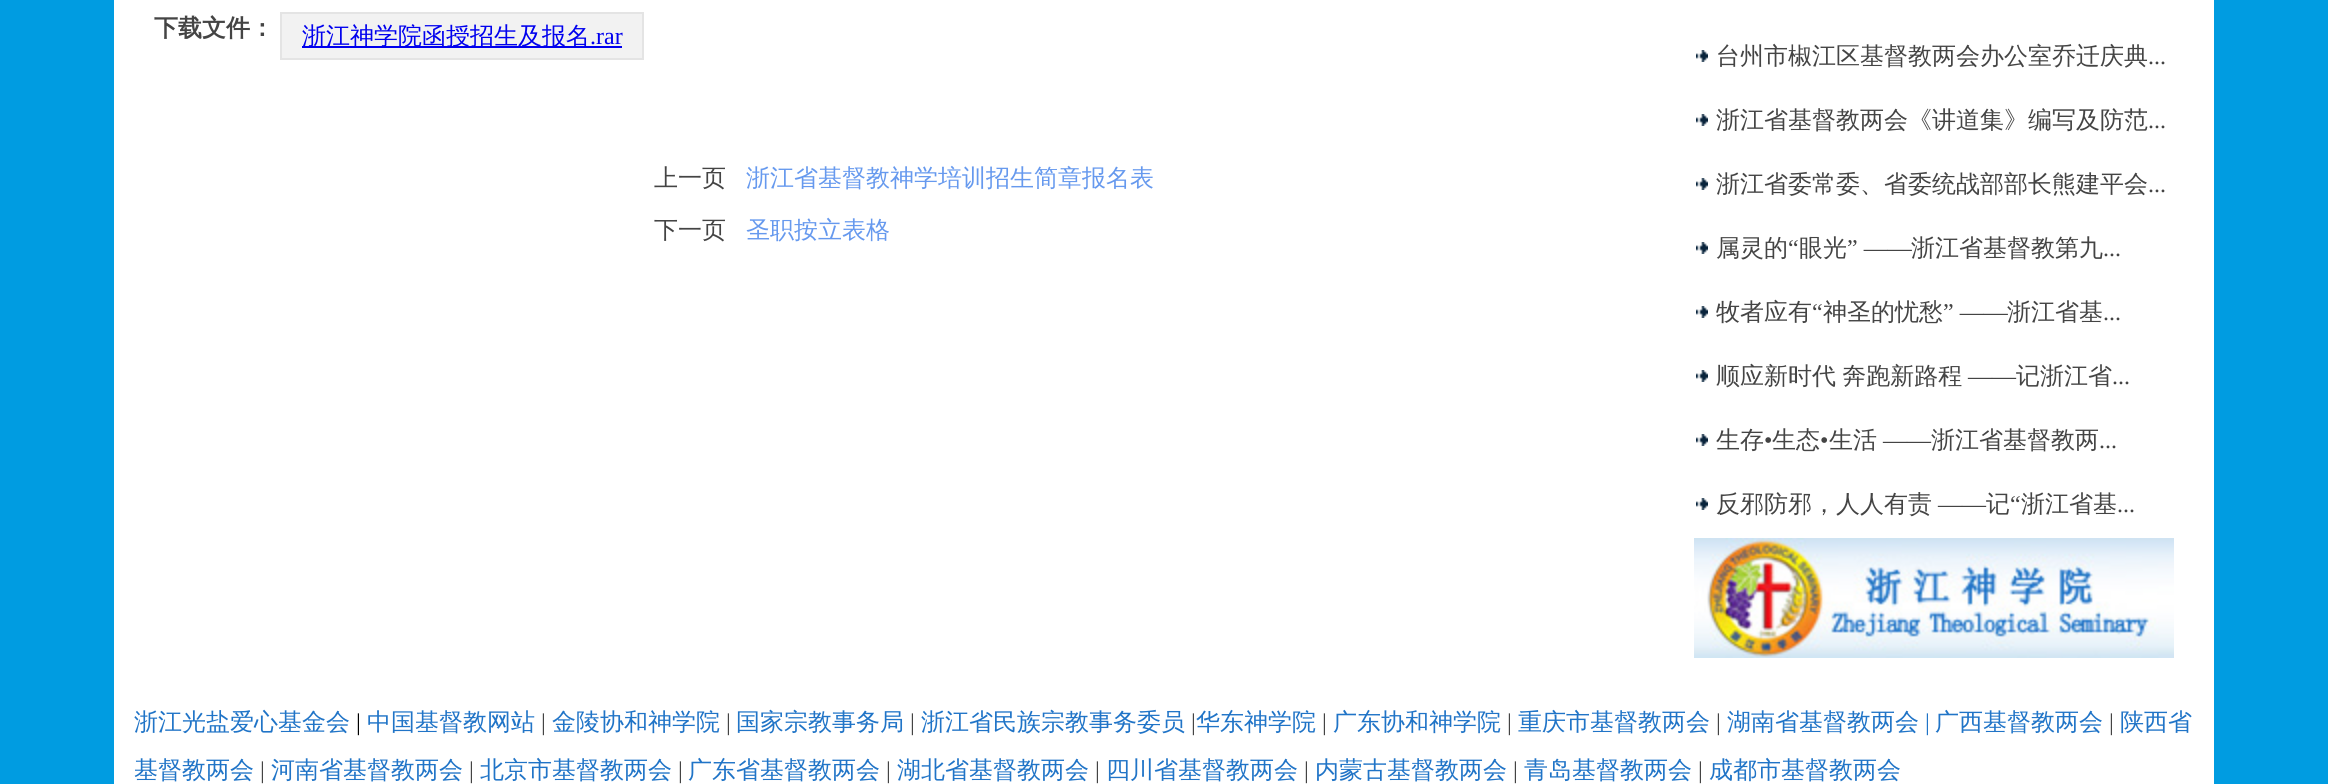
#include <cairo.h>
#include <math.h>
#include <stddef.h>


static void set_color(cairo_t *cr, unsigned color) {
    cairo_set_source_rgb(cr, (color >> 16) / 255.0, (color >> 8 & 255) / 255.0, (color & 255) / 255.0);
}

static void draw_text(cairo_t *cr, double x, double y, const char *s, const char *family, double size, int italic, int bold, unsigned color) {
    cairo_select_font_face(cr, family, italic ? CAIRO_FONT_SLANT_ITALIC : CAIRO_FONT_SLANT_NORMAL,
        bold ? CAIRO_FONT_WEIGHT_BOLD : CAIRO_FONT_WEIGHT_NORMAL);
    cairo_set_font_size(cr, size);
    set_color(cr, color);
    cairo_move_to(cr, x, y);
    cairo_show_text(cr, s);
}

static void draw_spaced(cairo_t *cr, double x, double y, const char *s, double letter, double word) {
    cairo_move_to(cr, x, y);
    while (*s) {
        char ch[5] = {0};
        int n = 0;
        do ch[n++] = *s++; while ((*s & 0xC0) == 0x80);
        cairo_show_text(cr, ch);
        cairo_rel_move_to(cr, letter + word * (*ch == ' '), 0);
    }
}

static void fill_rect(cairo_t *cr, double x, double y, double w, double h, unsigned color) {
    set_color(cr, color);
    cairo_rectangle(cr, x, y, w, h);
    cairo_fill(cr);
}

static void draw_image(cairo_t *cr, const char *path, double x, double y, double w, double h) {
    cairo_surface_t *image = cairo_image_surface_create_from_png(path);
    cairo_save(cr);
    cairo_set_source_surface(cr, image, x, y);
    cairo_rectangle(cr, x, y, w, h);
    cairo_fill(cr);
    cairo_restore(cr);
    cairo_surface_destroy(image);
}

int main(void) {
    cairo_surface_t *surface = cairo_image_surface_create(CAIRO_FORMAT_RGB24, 2328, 784);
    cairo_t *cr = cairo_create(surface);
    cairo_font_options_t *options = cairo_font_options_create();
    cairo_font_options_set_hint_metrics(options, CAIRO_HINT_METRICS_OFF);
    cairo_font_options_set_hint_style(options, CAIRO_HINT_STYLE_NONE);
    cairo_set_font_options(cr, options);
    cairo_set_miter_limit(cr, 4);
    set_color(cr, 0x009CE1);
    cairo_paint(cr);
    fill_rect(cr, 114, 0, 2100, 784, 0xFFFFFF);
    draw_text(cr, 154, 36, "下载文件：", "WenQuanYi Zen Hei", 24, 0, 1, 0x444444);
    set_color(cr, 0xF2F2F2);
    cairo_rectangle(cr, 281, 13, 362, 46);
    cairo_fill_preserve(cr);
    set_color(cr, 0xE4E4E4);
    cairo_stroke(cr);
    fill_rect(cr, 302, 46, 320, 2, 0x0000EE);
    draw_text(cr, 302, 44, "浙江神学院函授招生及报名", "WenQuanYi Zen Hei Medium", 24, 0, 0, 0x0000EE);
    draw_text(cr, 590, 44, ".rar", "Liberation Serif", 24, 0, 0, 0x0000EE);
    draw_text(cr, 654, 186, "上一页", "WenQuanYi Zen Hei Medium", 24, 0, 0, 0x444444);
    draw_text(cr, 746, 186, "浙江省基督教神学培训招生简章报名表", "WenQuanYi Zen Hei Medium", 24, 0, 0, 0x6699EE);
    draw_text(cr, 654, 238, "下一页", "WenQuanYi Zen Hei Medium", 24, 0, 0, 0x444444);
    draw_text(cr, 746, 238, "圣职按立表格", "WenQuanYi Zen Hei Medium", 24, 0, 0, 0x6699EE);
    draw_image(cr, "assets/img1.png", 1696, 50, 12, 12);
    draw_text(cr, 1716, 64, "台州市椒江区基督教两会办公室乔迁庆典", "WenQuanYi Zen Hei Medium", 24, 0, 0, 0x444444);
    draw_text(cr, 2148, 64, "...", "Liberation Serif", 24, 0, 0, 0x444444);
    draw_image(cr, "assets/img1.png", 1696, 114, 12, 12);
    draw_text(cr, 1716, 128, "浙江省基督教两会《讲道集》编写及防范", "WenQuanYi Zen Hei Medium", 24, 0, 0, 0x444444);
    draw_text(cr, 2148, 128, "...", "Liberation Serif", 24, 0, 0, 0x444444);
    draw_image(cr, "assets/img1.png", 1696, 178, 12, 12);
    draw_text(cr, 1716, 192, "浙江省委常委、省委统战部部长熊建平会", "WenQuanYi Zen Hei Medium", 24, 0, 0, 0x444444);
    draw_text(cr, 2148, 192, "...", "Liberation Serif", 24, 0, 0, 0x444444);
    draw_image(cr, "assets/img1.png", 1696, 242, 12, 12);
    draw_text(cr, 1716, 256, "属灵的", "WenQuanYi Zen Hei Medium", 24, 0, 0, 0x444444);
    draw_text(cr, 1788, 256, "“", "Liberation Serif", 24, 0, 0, 0x444444);
    draw_text(cr, 1799, 256, "眼光", "WenQuanYi Zen Hei Medium", 24, 0, 0, 0x444444);
    draw_text(cr, 1847, 256, "” ——", "Liberation Serif", 24, 0, 0, 0x444444);
    draw_text(cr, 1911, 256, "浙江省基督教第九", "WenQuanYi Zen Hei Medium", 24, 0, 0, 0x444444);
    draw_text(cr, 2103, 256, "...", "Liberation Serif", 24, 0, 0, 0x444444);
    draw_image(cr, "assets/img1.png", 1696, 306, 12, 12);
    draw_text(cr, 1716, 320, "牧者应有", "WenQuanYi Zen Hei Medium", 24, 0, 0, 0x444444);
    draw_text(cr, 1812, 320, "“", "Liberation Serif", 24, 0, 0, 0x444444);
    draw_text(cr, 1823, 320, "神圣的忧愁", "WenQuanYi Zen Hei Medium", 24, 0, 0, 0x444444);
    draw_text(cr, 1943, 320, "” ——", "Liberation Serif", 24, 0, 0, 0x444444);
    draw_text(cr, 2007, 320, "浙江省基", "WenQuanYi Zen Hei Medium", 24, 0, 0, 0x444444);
    draw_text(cr, 2103, 320, "...", "Liberation Serif", 24, 0, 0, 0x444444);
    draw_image(cr, "assets/img1.png", 1696, 370, 12, 12);
    cairo_select_font_face(cr, "WenQuanYi Zen Hei Medium", CAIRO_FONT_SLANT_NORMAL, CAIRO_FONT_WEIGHT_NORMAL);
    draw_spaced(cr, 1716, 384, "顺应新时代 奔跑新路程", 0, -1);
    draw_text(cr, 1968, 384, "——", "Liberation Serif", 24, 0, 0, 0x444444);
    draw_text(cr, 2016, 384, "记浙江省", "WenQuanYi Zen Hei Medium", 24, 0, 0, 0x444444);
    draw_text(cr, 2112, 384, "...", "Liberation Serif", 24, 0, 0, 0x444444);
    draw_image(cr, "assets/img1.png", 1696, 434, 12, 12);
    draw_text(cr, 1716, 448, "生存", "WenQuanYi Zen Hei Medium", 24, 0, 0, 0x444444);
    draw_text(cr, 1764, 448, "•", "Liberation Serif", 24, 0, 0, 0x444444);
    draw_text(cr, 1772, 448, "生态", "WenQuanYi Zen Hei Medium", 24, 0, 0, 0x444444);
    draw_text(cr, 1820, 448, "•", "Liberation Serif", 24, 0, 0, 0x444444);
    draw_text(cr, 1829, 448, "生活", "WenQuanYi Zen Hei Medium", 24, 0, 0, 0x444444);
    draw_text(cr, 1883, 448, "——", "Liberation Serif", 24, 0, 0, 0x444444);
    draw_text(cr, 1931, 448, "浙江省基督教两", "WenQuanYi Zen Hei Medium", 24, 0, 0, 0x444444);
    draw_text(cr, 2099, 448, "...", "Liberation Serif", 24, 0, 0, 0x444444);
    draw_image(cr, "assets/img1.png", 1696, 498, 12, 12);
    draw_text(cr, 1716, 512, "反邪防邪，人人有责", "WenQuanYi Zen Hei Medium", 24, 0, 0, 0x444444);
    draw_text(cr, 1938, 512, "——", "Liberation Serif", 24, 0, 0, 0x444444);
    draw_text(cr, 1986, 512, "记", "WenQuanYi Zen Hei Medium", 24, 0, 0, 0x444444);
    draw_text(cr, 2010, 512, "“", "Liberation Serif", 24, 0, 0, 0x444444);
    draw_text(cr, 2021, 512, "浙江省基", "WenQuanYi Zen Hei Medium", 24, 0, 0, 0x444444);
    draw_text(cr, 2117, 512, "...", "Liberation Serif", 24, 0, 0, 0x444444);
    draw_image(cr, "assets/img2.png", 1694, 538, 480, 120);
    draw_text(cr, 134, 730, "浙江光盐爱心基金会", "WenQuanYi Zen Hei Medium", 24, 0, 0, 0x2074C7);
    draw_text(cr, 356, 730, "|", "Liberation Serif", 24, 0, 0, 0x000000);
    draw_text(cr, 367, 730, "中国基督教网站", "WenQuanYi Zen Hei Medium", 24, 0, 0, 0x2074C7);
    draw_text(cr, 541, 730, "|", "Liberation Serif", 24, 0, 0, 0x444444);
    draw_text(cr, 552, 730, "金陵协和神学院", "WenQuanYi Zen Hei Medium", 24, 0, 0, 0x2074C7);
    draw_text(cr, 726, 730, "|", "Liberation Serif", 24, 0, 0, 0x444444);
    draw_text(cr, 736, 730, "国家宗教事务局", "WenQuanYi Zen Hei Medium", 24, 0, 0, 0x2074C7);
    draw_text(cr, 910, 730, "|", "Liberation Serif", 24, 0, 0, 0x444444);
    draw_text(cr, 921, 730, "浙江省民族宗教事务委员", "WenQuanYi Zen Hei Medium", 24, 0, 0, 0x2074C7);
    draw_text(cr, 1191, 730, "|", "Liberation Serif", 24, 0, 0, 0x444444);
    draw_text(cr, 1196, 730, "华东神学院", "WenQuanYi Zen Hei Medium", 24, 0, 0, 0x2074C7);
    draw_text(cr, 1322, 730, "|", "Liberation Serif", 24, 0, 0, 0x444444);
    draw_text(cr, 1333, 730, "广东协和神学院", "WenQuanYi Zen Hei Medium", 24, 0, 0, 0x2074C7);
    draw_text(cr, 1507, 730, "|", "Liberation Serif", 24, 0, 0, 0x444444);
    draw_text(cr, 1518, 730, "重庆市基督教两会", "WenQuanYi Zen Hei Medium", 24, 0, 0, 0x2074C7);
    draw_text(cr, 1716, 730, "|", "Liberation Serif", 24, 0, 0, 0x444444);
    draw_text(cr, 1727, 730, "湖南省基督教两会", "WenQuanYi Zen Hei Medium", 24, 0, 0, 0x2074C7);
    draw_text(cr, 1925, 730, "|", "Liberation Serif", 24, 0, 0, 0x2074C7);
    draw_text(cr, 1935, 730, "广西基督教两会", "WenQuanYi Zen Hei Medium", 24, 0, 0, 0x2074C7);
    draw_text(cr, 2109, 730, "|", "Liberation Serif", 24, 0, 0, 0x444444);
    draw_text(cr, 2120, 730, "陕西省", "WenQuanYi Zen Hei Medium", 24, 0, 0, 0x2074C7);
    draw_text(cr, 134, 778, "基督教两会", "WenQuanYi Zen Hei Medium", 24, 0, 0, 0x2074C7);
    draw_text(cr, 260, 778, "|", "Liberation Serif", 24, 0, 0, 0x444444);
    draw_text(cr, 271, 778, "河南省基督教两会", "WenQuanYi Zen Hei Medium", 24, 0, 0, 0x2074C7);
    draw_text(cr, 469, 778, "|", "Liberation Serif", 24, 0, 0, 0x444444);
    draw_text(cr, 480, 778, "北京市基督教两会", "WenQuanYi Zen Hei Medium", 24, 0, 0, 0x2074C7);
    draw_text(cr, 678, 778, "|", "Liberation Serif", 24, 0, 0, 0x444444);
    draw_text(cr, 688, 778, "广东省基督教两会", "WenQuanYi Zen Hei Medium", 24, 0, 0, 0x2074C7);
    draw_text(cr, 886, 778, "|", "Liberation Serif", 24, 0, 0, 0x444444);
    draw_text(cr, 897, 778, "湖北省基督教两会", "WenQuanYi Zen Hei Medium", 24, 0, 0, 0x2074C7);
    draw_text(cr, 1095, 778, "|", "Liberation Serif", 24, 0, 0, 0x444444);
    draw_text(cr, 1106, 778, "四川省基督教两会", "WenQuanYi Zen Hei Medium", 24, 0, 0, 0x2074C7);
    draw_text(cr, 1304, 778, "|", "Liberation Serif", 24, 0, 0, 0x444444);
    draw_text(cr, 1315, 778, "内蒙古基督教两会", "WenQuanYi Zen Hei Medium", 24, 0, 0, 0x2074C7);
    draw_text(cr, 1513, 778, "|", "Liberation Serif", 24, 0, 0, 0x444444);
    draw_text(cr, 1524, 778, "青岛基督教两会", "WenQuanYi Zen Hei Medium", 24, 0, 0, 0x2074C7);
    draw_text(cr, 1698, 778, "|", "Liberation Serif", 24, 0, 0, 0x444444);
    draw_text(cr, 1709, 778, "成都市基督教两会", "WenQuanYi Zen Hei Medium", 24, 0, 0, 0x2074C7);
    cairo_surface_write_to_png(surface, "output.png");
    cairo_font_options_destroy(options);
    cairo_destroy(cr);
    cairo_surface_destroy(surface);
    return 0;
}
